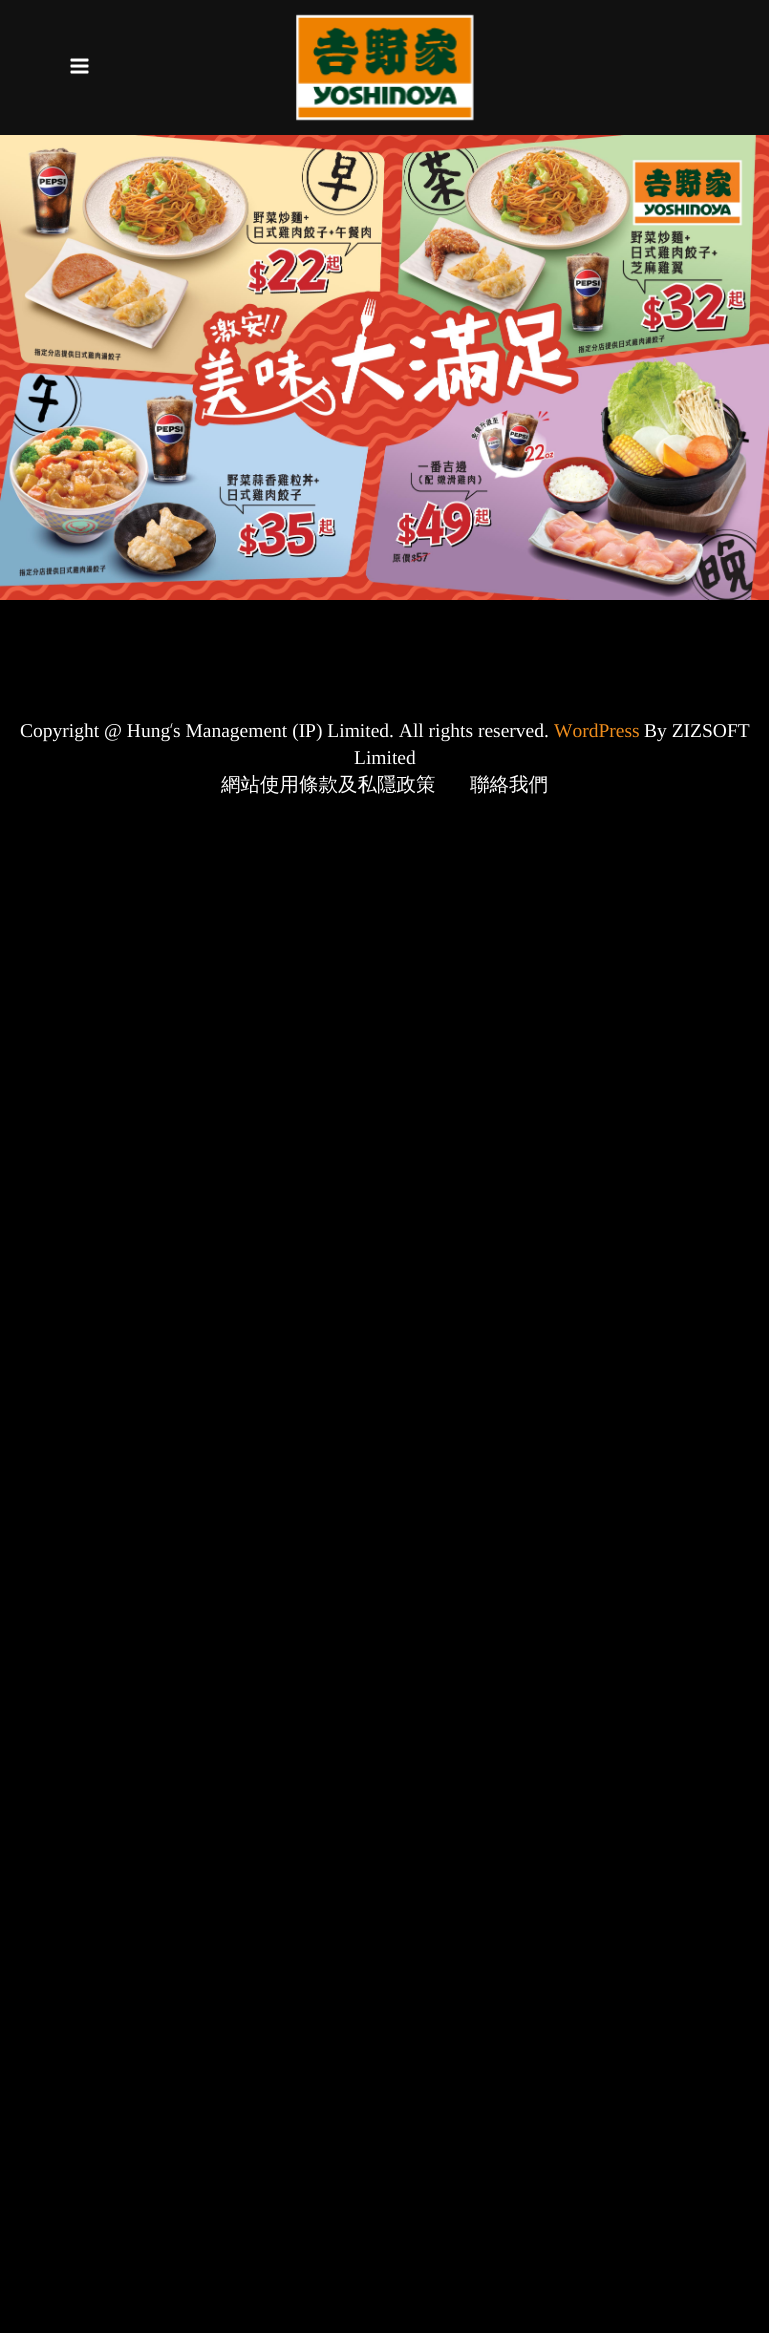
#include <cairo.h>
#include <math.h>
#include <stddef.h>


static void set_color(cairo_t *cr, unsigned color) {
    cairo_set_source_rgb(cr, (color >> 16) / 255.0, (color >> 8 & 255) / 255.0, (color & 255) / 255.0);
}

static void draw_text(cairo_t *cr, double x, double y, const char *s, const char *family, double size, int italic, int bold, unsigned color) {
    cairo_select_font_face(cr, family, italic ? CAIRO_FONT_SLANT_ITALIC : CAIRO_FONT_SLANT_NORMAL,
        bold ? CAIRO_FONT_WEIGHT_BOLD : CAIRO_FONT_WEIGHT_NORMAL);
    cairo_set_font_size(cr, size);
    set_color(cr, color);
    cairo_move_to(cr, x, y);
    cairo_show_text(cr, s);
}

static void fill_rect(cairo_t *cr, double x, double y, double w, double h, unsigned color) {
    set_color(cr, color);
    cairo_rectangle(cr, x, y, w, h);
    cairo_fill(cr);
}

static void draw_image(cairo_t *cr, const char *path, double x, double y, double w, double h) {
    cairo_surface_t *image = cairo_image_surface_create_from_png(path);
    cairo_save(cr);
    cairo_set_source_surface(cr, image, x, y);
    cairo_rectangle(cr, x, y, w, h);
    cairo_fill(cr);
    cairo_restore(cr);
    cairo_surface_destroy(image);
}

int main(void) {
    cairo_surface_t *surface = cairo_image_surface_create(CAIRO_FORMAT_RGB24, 769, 2333);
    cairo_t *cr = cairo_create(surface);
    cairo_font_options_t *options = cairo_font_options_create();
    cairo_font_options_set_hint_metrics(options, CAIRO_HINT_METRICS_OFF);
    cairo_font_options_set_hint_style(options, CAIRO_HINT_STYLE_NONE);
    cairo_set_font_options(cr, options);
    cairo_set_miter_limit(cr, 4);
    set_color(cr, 0x000000);
    cairo_paint(cr);
    fill_rect(cr, 0, 0, 769, 135, 0x111111);
    draw_image(cr, "assets/img1.png", 70, 58, 19, 16);
    draw_image(cr, "assets/img2.png", 296, 14, 178, 107);
    draw_image(cr, "assets/img3.png", 0, 135, 769, 465);
    draw_text(cr, 20, 737, "Copyright @ Hung", "Liberation Serif", 19.5, 0, 0, 0xFFFFFF);
    draw_text(cr, 170, 737, "‘", "Open Sans Light", 19.5, 0, 0, 0xFFFFFF);
    draw_text(cr, 173, 737, "s Management (IP) Limited. All rights reserved.", "Liberation Serif", 19.5, 0, 0, 0xFFFFFF);
    draw_text(cr, 554, 737, "WordPress", "Liberation Serif", 19.5, 0, 0, 0xEF8D1C);
    draw_text(cr, 644, 737, "By ZIZSOFT", "Liberation Serif", 19.5, 0, 0, 0xFFFFFF);
    draw_text(cr, 354, 764, "Limited", "Liberation Serif", 19.5, 0, 0, 0xFFFFFF);
    draw_text(cr, 221, 791, "網站使用條款及私隱政策", "WenQuanYi Zen Hei Medium", 19.5, 0, 0, 0xFFFFFF);
    draw_text(cr, 470, 791, "聯絡我們", "WenQuanYi Zen Hei Medium", 19.5, 0, 0, 0xFFFFFF);
    cairo_surface_write_to_png(surface, "output.png");
    cairo_font_options_destroy(options);
    cairo_destroy(cr);
    cairo_surface_destroy(surface);
    return 0;
}
